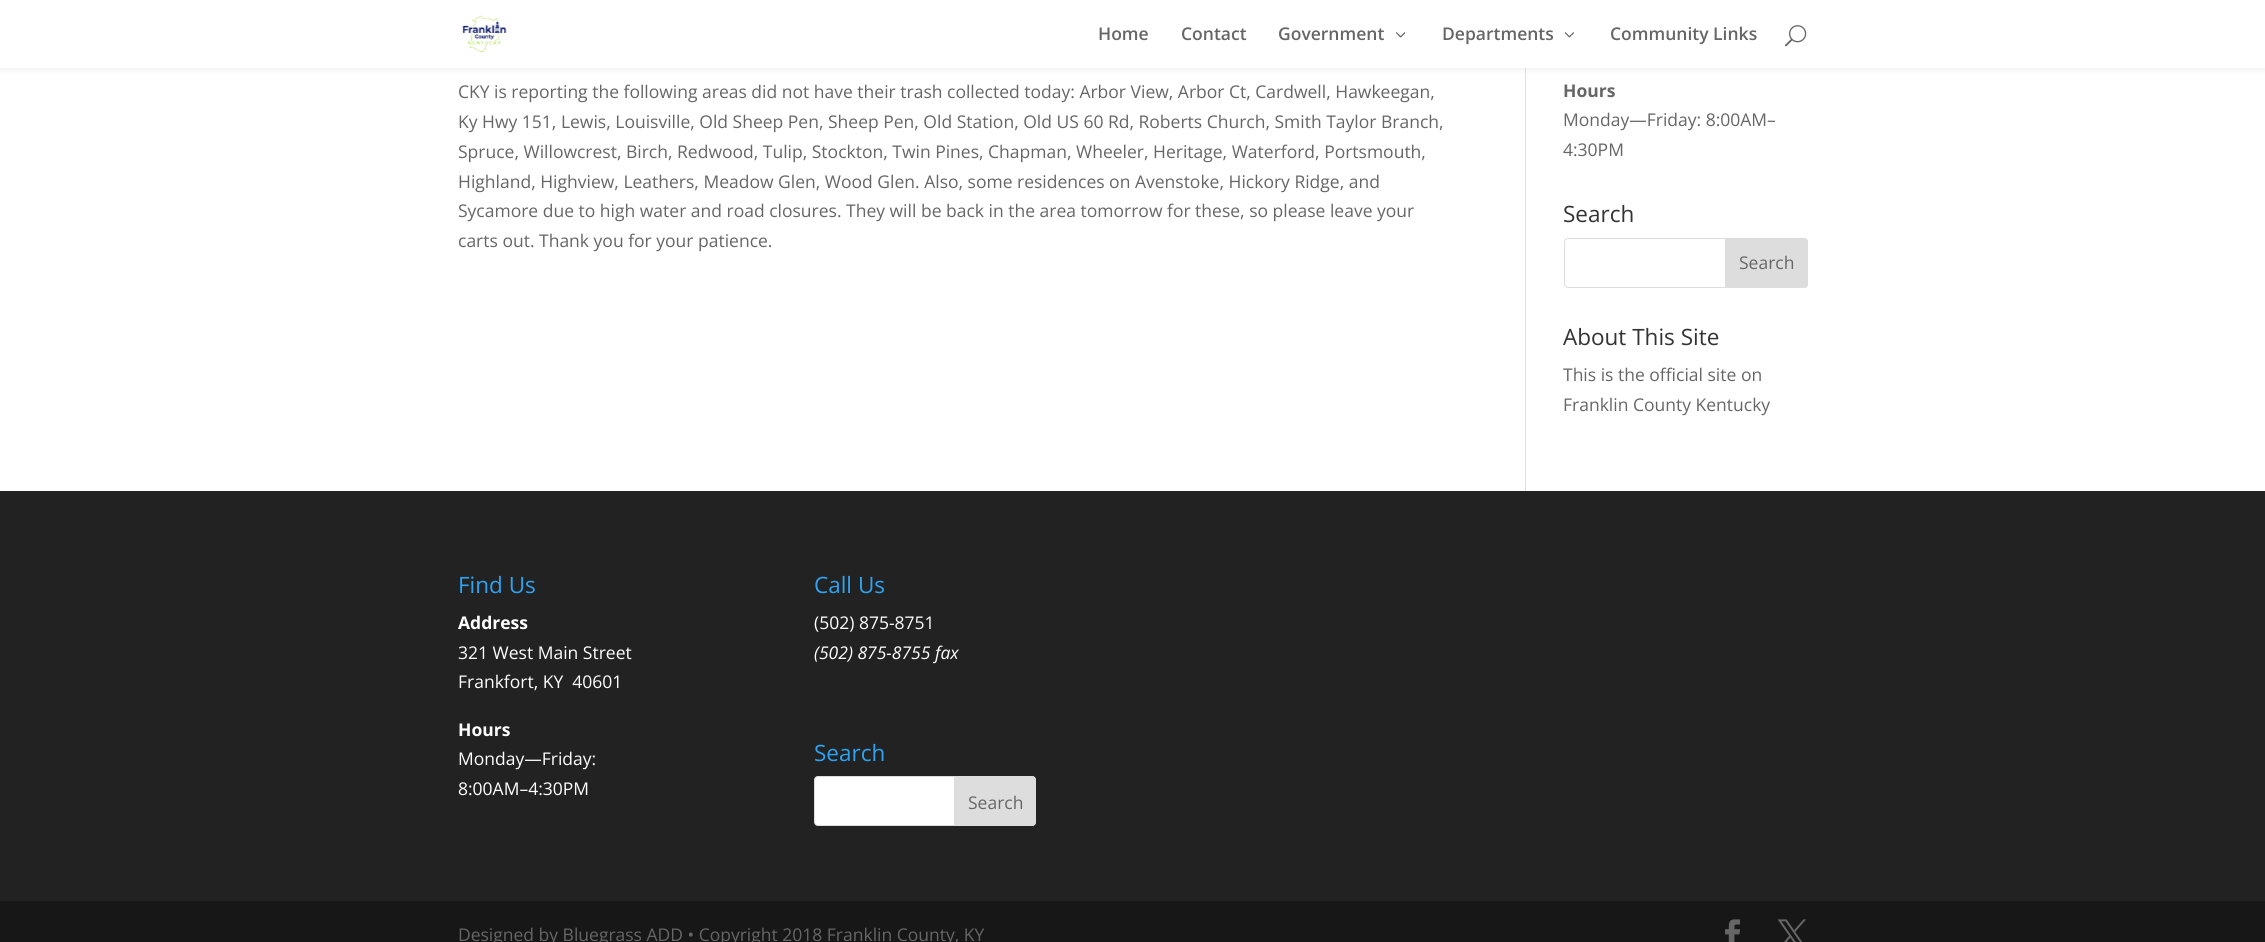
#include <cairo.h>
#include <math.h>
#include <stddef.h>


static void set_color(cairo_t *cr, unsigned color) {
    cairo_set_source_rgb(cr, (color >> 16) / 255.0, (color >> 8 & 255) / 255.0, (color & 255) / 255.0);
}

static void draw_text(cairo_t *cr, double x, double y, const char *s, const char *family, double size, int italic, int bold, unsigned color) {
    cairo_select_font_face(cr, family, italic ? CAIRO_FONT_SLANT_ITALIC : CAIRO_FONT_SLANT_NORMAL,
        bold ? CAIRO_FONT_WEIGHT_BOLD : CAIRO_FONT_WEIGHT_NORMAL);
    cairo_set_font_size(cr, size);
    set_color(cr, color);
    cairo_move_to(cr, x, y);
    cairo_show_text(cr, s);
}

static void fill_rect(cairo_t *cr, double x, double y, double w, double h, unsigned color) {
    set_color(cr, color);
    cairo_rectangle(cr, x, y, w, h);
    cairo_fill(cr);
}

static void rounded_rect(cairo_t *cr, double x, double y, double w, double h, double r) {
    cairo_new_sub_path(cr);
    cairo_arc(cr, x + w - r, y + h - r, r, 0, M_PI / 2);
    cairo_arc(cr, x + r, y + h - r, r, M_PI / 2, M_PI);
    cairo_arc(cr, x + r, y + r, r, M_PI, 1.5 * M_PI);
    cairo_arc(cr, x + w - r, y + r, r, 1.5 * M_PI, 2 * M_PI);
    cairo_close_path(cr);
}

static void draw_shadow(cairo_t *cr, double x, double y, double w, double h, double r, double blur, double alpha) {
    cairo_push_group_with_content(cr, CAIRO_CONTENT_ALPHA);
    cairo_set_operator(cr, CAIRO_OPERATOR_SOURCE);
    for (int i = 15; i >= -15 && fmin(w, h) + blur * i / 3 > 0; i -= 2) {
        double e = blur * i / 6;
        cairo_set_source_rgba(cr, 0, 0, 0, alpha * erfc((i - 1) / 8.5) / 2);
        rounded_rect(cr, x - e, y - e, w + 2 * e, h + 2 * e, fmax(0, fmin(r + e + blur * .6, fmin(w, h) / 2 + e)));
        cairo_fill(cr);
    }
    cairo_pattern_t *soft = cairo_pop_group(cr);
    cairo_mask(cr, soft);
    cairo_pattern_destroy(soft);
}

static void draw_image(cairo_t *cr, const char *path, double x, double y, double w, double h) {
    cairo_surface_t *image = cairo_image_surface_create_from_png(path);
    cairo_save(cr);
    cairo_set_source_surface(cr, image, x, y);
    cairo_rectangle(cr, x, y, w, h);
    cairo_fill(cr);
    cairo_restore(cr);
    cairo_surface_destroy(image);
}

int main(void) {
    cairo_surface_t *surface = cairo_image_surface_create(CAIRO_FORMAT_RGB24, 2265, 942);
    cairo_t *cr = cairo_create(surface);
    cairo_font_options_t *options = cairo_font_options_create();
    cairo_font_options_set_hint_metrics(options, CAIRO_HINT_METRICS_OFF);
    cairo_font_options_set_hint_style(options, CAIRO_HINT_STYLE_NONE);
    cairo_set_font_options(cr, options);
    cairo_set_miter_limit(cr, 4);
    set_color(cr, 0xFFFFFF);
    cairo_paint(cr);
    fill_rect(cr, 1525, 68, 1, 423, 0xE2E2E2);
    set_color(cr, 0x000000);
    draw_shadow(cr, 0, 0, 2265, 68, 0, 4.5, 0.1);
    fill_rect(cr, 0, 0, 2265, 68, 0xFFFFFF);
    draw_image(cr, "assets/img1.png", 462, 15, 45, 38);
    draw_text(cr, 1098, 40, "Home", "Open Sans SemiBold", 17.5, 0, 0, 0x666666);
    draw_text(cr, 1181, 40, "Contact", "Open Sans SemiBold", 17.5, 0, 0, 0x666666);
    draw_text(cr, 1278, 40, "Government", "Open Sans SemiBold", 17.5, 0, 0, 0x666666);
    draw_image(cr, "assets/img2.png", 1396, 32, 10, 6);
    draw_text(cr, 1442, 40, "Departments", "Open Sans SemiBold", 17.5, 0, 0, 0x666666);
    draw_image(cr, "assets/img3.png", 1564, 32, 10, 6);
    draw_text(cr, 1610, 40, "Community Links", "Open Sans SemiBold", 17.5, 0, 0, 0x666666);
    draw_image(cr, "assets/img4.png", 1785, 25, 22, 22);
    draw_text(cr, 458, 98, "CKY is reporting the following areas did not have their trash collected today: Arbor View, Arbor Ct, Cardwell, Hawkeegan,", "Open Sans", 17.5, 0, 0, 0x666666);
    draw_text(cr, 458, 128, "Ky Hwy 151, Lewis, Louisville, Old Sheep Pen, Sheep Pen, Old Station, Old US 60 Rd, Roberts Church, Smith Taylor Branch,", "Open Sans", 17.5, 0, 0, 0x666666);
    draw_text(cr, 458, 158, "Spruce, Willowcrest, Birch, Redwood, Tulip, Stockton, Twin Pines, Chapman, Wheeler, Heritage, Waterford, Portsmouth,", "Open Sans", 17.5, 0, 0, 0x666666);
    draw_text(cr, 458, 188, "Highland, Highview, Leathers, Meadow Glen, Wood Glen. Also, some residences on Avenstoke, Hickory Ridge, and", "Open Sans", 17.5, 0, 0, 0x666666);
    draw_text(cr, 458, 217, "Sycamore due to high water and road closures. They will be back in the area tomorrow for these, so please leave your", "Open Sans", 17.5, 0, 0, 0x666666);
    draw_text(cr, 458, 247, "carts out. Thank you for your patience.", "Open Sans", 17.5, 0, 0, 0x666666);
    draw_text(cr, 1563, 97, "Hours", "Open Sans", 17.5, 0, 1, 0x666666);
    draw_text(cr, 1563, 126, "Monday—Friday: 8:00AM–", "Open Sans", 17.5, 0, 0, 0x666666);
    draw_text(cr, 1563, 156, "4:30PM", "Open Sans", 17.5, 0, 0, 0x666666);
    draw_text(cr, 1563, 222, "Search", "Open Sans", 22.5, 0, 0, 0x333333);
    rounded_rect(cr, 1564.5, 238.5, 243, 49, 3.5);
    set_color(cr, 0xDDDDDD);
    cairo_set_line_width(cr, 1);
    cairo_stroke(cr);
    cairo_new_path(cr);
    cairo_move_to(cr, 1725.5, 238.5);
    cairo_line_to(cr, 1804, 238.5);
    cairo_curve_to(cr, 1806, 238.5, 1807.5, 240, 1807.5, 242);
    cairo_line_to(cr, 1807.5, 284);
    cairo_curve_to(cr, 1807.5, 286, 1806, 287.5, 1804, 287.5);
    cairo_line_to(cr, 1725.5, 287.5);
    cairo_close_path(cr);
    cairo_fill_preserve(cr);
    cairo_stroke(cr);
    draw_text(cr, 1739, 269, "Search", "Open Sans", 17.5, 0, 0, 0x666666);
    draw_text(cr, 1563, 345, "About This Site", "Open Sans", 22.5, 0, 0, 0x333333);
    draw_text(cr, 1563, 381, "This is the official site on", "Open Sans", 17.5, 0, 0, 0x666666);
    draw_text(cr, 1563, 411, "Franklin County Kentucky", "Open Sans", 17.5, 0, 0, 0x666666);
    fill_rect(cr, 0, 491, 2265, 410, 0x222222);
    draw_text(cr, 458, 593, "Find Us", "Open Sans", 22.5, 0, 0, 0x2EA3F2);
    draw_text(cr, 458, 629, "Address", "Open Sans", 17.5, 0, 1, 0xFFFFFF);
    draw_text(cr, 458, 659, "321 West Main Street", "Open Sans", 17.5, 0, 0, 0xFFFFFF);
    draw_text(cr, 458, 688, "Frankfort, KY  40601", "Open Sans", 17.5, 0, 0, 0xFFFFFF);
    draw_text(cr, 458, 736, "Hours", "Open Sans", 17.5, 0, 1, 0xFFFFFF);
    draw_text(cr, 458, 765, "Monday—Friday:", "Open Sans", 17.5, 0, 0, 0xFFFFFF);
    draw_text(cr, 458, 795, "8:00AM–4:30PM", "Open Sans", 17.5, 0, 0, 0xFFFFFF);
    draw_text(cr, 814, 593, "Call Us", "Open Sans", 22.5, 0, 0, 0x2EA3F2);
    draw_text(cr, 814, 629, "(502) 875-8751", "Open Sans", 17.5, 0, 0, 0xFFFFFF);
    draw_text(cr, 814, 659, "(502) 875-8755 fax", "Open Sans", 17.5, 1, 0, 0xFFFFFF);
    draw_text(cr, 814, 761, "Search", "Open Sans", 22.5, 0, 0, 0x2EA3F2);
    set_color(cr, 0xFFFFFF);
    rounded_rect(cr, 814.5, 776.5, 221, 49, 3.5);
    cairo_fill_preserve(cr);
    set_color(cr, 0xDDDDDD);
    cairo_stroke(cr);
    cairo_new_path(cr);
    cairo_move_to(cr, 954.5, 776.5);
    cairo_line_to(cr, 1032, 776.5);
    cairo_curve_to(cr, 1034, 776.5, 1035.5, 778, 1035.5, 780);
    cairo_line_to(cr, 1035.5, 822);
    cairo_curve_to(cr, 1035.5, 824, 1034, 825.5, 1032, 825.5);
    cairo_line_to(cr, 954.5, 825.5);
    cairo_close_path(cr);
    cairo_fill_preserve(cr);
    cairo_stroke(cr);
    draw_text(cr, 968, 809, "Search", "Open Sans", 17.5, 0, 0, 0x666666);
    fill_rect(cr, 0, 901, 2265, 41, 0x171717);
    draw_text(cr, 458, 941, "Designed by Bluegrass ADD • Copyright 2018 Franklin County, KY", "Open Sans", 17.5, 0, 0, 0x666666);
    draw_image(cr, "assets/img5.png", 1725, 919, 15, 23);
    draw_image(cr, "assets/img6.png", 1777, 919, 29, 23);
    cairo_surface_write_to_png(surface, "output.png");
    cairo_font_options_destroy(options);
    cairo_destroy(cr);
    cairo_surface_destroy(surface);
    return 0;
}
